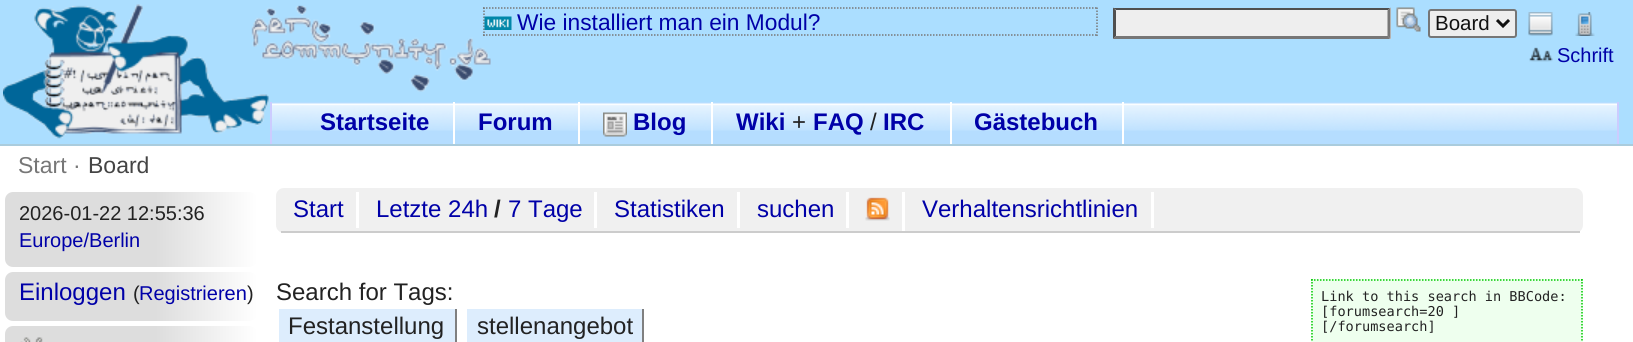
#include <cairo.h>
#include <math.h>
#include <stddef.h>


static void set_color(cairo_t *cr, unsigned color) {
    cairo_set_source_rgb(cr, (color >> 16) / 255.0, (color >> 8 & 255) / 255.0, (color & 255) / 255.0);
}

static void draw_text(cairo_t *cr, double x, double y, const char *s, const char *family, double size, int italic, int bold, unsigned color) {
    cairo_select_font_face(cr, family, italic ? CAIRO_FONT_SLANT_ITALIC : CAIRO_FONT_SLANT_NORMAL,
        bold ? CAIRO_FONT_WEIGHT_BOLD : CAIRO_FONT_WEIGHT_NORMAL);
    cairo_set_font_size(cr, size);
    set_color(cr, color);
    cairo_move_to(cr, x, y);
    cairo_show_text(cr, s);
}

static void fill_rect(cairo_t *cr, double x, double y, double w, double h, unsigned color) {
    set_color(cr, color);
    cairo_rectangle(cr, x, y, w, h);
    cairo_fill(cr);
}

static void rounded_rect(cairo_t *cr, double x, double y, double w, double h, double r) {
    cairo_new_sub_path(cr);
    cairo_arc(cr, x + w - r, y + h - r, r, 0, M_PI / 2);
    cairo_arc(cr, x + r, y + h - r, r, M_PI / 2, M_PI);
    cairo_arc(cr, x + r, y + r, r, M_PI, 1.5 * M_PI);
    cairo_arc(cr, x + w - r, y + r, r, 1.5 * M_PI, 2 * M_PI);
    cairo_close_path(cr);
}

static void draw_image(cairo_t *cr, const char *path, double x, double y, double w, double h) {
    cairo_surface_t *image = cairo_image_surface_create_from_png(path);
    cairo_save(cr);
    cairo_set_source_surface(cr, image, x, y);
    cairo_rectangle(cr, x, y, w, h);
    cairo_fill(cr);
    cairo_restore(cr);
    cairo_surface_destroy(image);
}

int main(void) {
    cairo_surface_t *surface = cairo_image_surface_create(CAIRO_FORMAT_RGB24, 1633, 342);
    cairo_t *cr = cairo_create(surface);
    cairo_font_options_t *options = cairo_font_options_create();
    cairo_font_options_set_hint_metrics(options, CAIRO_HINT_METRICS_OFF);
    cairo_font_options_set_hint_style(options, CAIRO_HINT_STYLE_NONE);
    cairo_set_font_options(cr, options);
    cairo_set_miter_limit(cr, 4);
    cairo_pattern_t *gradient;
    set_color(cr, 0xFFFFFF);
    cairo_paint(cr);
    fill_rect(cr, 0, 0, 1633, 144, 0xABDEFF);
    draw_image(cr, "assets/img1.png", 3, 4, 488, 135);
    fill_rect(cr, 0, 144, 1633, 2, 0xAACCDD);
    cairo_new_path(cr);
    cairo_move_to(cr, 483, 8);
    cairo_line_to(cr, 1098, 8);
    set_color(cr, 0x777777);
    cairo_set_line_width(cr, 1.5);
    cairo_set_dash(cr, (double[]){1.5, 1.5}, 2, 0);
    cairo_stroke(cr);
    cairo_new_path(cr);
    cairo_move_to(cr, 1097, 7.5);
    cairo_line_to(cr, 1097, 36);
    cairo_stroke(cr);
    cairo_new_path(cr);
    cairo_move_to(cr, 483, 35);
    cairo_line_to(cr, 1098, 35);
    cairo_stroke(cr);
    cairo_new_path(cr);
    cairo_move_to(cr, 484, 7.5);
    cairo_line_to(cr, 484, 36);
    cairo_stroke(cr);
    draw_image(cr, "assets/img2.png", 484, 16, 28, 14);
    draw_text(cr, 517, 30, "Wie installiert man ein Modul?", "Liberation Sans", 22.75, 0, 0, 0x0000A8);
    fill_rect(cr, 1113, 8, 278, 31, 0xEEEEEE);
    set_color(cr, 0x4F4F4F);
    cairo_new_path(cr);
    cairo_move_to(cr, 1113, 8);
    cairo_line_to(cr, 1390, 8);
    cairo_line_to(cr, 1388, 10);
    cairo_line_to(cr, 1116, 10);
    cairo_close_path(cr);
    cairo_fill(cr);
    set_color(cr, 0x767676);
    cairo_new_path(cr);
    cairo_move_to(cr, 1390.5, 7.5);
    cairo_line_to(cr, 1390.5, 39);
    cairo_line_to(cr, 1387.5, 36);
    cairo_line_to(cr, 1387.5, 10.5);
    cairo_close_path(cr);
    cairo_fill(cr);
    cairo_new_path(cr);
    cairo_move_to(cr, 1390, 39);
    cairo_line_to(cr, 1113, 39);
    cairo_line_to(cr, 1116, 36);
    cairo_line_to(cr, 1388, 36);
    cairo_close_path(cr);
    cairo_fill(cr);
    set_color(cr, 0x4F4F4F);
    cairo_new_path(cr);
    cairo_move_to(cr, 1113, 39);
    cairo_line_to(cr, 1113, 7.5);
    cairo_line_to(cr, 1116, 10.5);
    cairo_line_to(cr, 1116, 36);
    cairo_close_path(cr);
    cairo_fill(cr);
    draw_image(cr, "assets/img3.png", 1396, 7, 25, 25);
    set_color(cr, 0xEEEEEE);
    rounded_rect(cr, 1429, 10, 87, 27, 2);
    cairo_fill_preserve(cr);
    set_color(cr, 0x767676);
    cairo_set_line_width(cr, 2);
    cairo_set_dash(cr, NULL, 0, 0);
    cairo_stroke(cr);
    cairo_new_path(cr);
    cairo_move_to(cr, 1497, 20);
    cairo_line_to(cr, 1503, 26);
    cairo_line_to(cr, 1509, 20);
    set_color(cr, 0x111111);
    cairo_set_line_width(cr, 3);
    cairo_stroke(cr);
    draw_text(cr, 1435, 30, "Board", "Liberation Sans", 20.5, 0, 0, 0x111111);
    draw_image(cr, "assets/img4.png", 1528, 12, 25, 24);
    draw_image(cr, "assets/img5.png", 1575, 12, 20, 24);
    draw_image(cr, "assets/img6.png", 1529, 47, 24, 15);
    draw_text(cr, 1557, 62, "Schrift", "Liberation Sans", 20, 0, 0, 0x0000A8);
    draw_image(cr, "assets/img7.png", 272, 102, 1345, 42);
    fill_rect(cr, 1617, 102, 2, 42, 0xCCCCFF);
    fill_rect(cr, 270, 102, 2, 42, 0xCCCCFF);
    fill_rect(cr, 453, 102, 2, 42, 0xFFFFFF);
    draw_text(cr, 320, 130, "Startseite", "Liberation Sans", 24, 0, 1, 0x0000A8);
    fill_rect(cr, 578, 102, 2, 42, 0xFFFFFF);
    draw_text(cr, 478, 130, "Forum", "Liberation Sans", 24, 0, 1, 0x0000A8);
    fill_rect(cr, 711, 102, 2, 42, 0xFFFFFF);
    draw_image(cr, "assets/img8.png", 603, 112, 24, 25);
    draw_text(cr, 633, 130, "Blog", "Liberation Sans", 24, 0, 1, 0x0000A8);
    fill_rect(cr, 950, 102, 2, 42, 0xFFFFFF);
    draw_text(cr, 736, 130, "Wiki", "Liberation Sans", 24, 0, 1, 0x0000A8);
    draw_text(cr, 792, 130, "+", "Liberation Sans", 24, 0, 0, 0x222222);
    draw_text(cr, 813, 130, "FAQ", "Liberation Sans", 24, 0, 1, 0x0000A8);
    draw_text(cr, 870, 130, "/", "Liberation Sans", 24, 0, 0, 0x222222);
    draw_text(cr, 883, 130, "IRC", "Liberation Sans", 24, 0, 1, 0x0000A8);
    fill_rect(cr, 1122, 102, 2, 42, 0xFFFFFF);
    draw_text(cr, 974, 130, "Gästebuch", "Liberation Sans", 24, 0, 1, 0x0000A8);
    draw_text(cr, 18, 173, "Start ·", "Liberation Sans", 23, 0, 0, 0x777777);
    draw_text(cr, 88, 173, "Board", "Liberation Sans", 23, 0, 0, 0x444444);
    gradient = cairo_pattern_create_linear(4.5, 230, 257, 230);
    cairo_pattern_add_color_stop_rgba(gradient, 0.6, 0.867, 0.867, 0.867, 1);
    cairo_pattern_add_color_stop_rgba(gradient, 1, 1, 1, 1, 1);
    cairo_set_source(cr, gradient);
    cairo_pattern_destroy(gradient);
    rounded_rect(cr, 5, 192, 252, 75, 8);
    cairo_fill(cr);
    draw_text(cr, 19, 220, "2026-01-22 12:55:36", "Liberation Sans", 20, 0, 0, 0x222222);
    draw_text(cr, 19, 247, "Europe/Berlin", "Liberation Sans", 20, 0, 0, 0x0000A8);
    gradient = cairo_pattern_create_linear(4.5, 296, 257, 296);
    cairo_pattern_add_color_stop_rgba(gradient, 0.6, 0.867, 0.867, 0.867, 1);
    cairo_pattern_add_color_stop_rgba(gradient, 1, 1, 1, 1, 1);
    cairo_set_source(cr, gradient);
    cairo_pattern_destroy(gradient);
    rounded_rect(cr, 5, 272, 252, 49, 8);
    cairo_fill(cr);
    draw_text(cr, 19, 300, "Einloggen", "Liberation Sans", 24, 0, 0, 0x0000A8);
    draw_text(cr, 133, 300, "(", "Liberation Sans", 20, 0, 0, 0x222222);
    draw_text(cr, 139, 300, "Registrieren", "Liberation Sans", 20, 0, 0, 0x0000A8);
    draw_text(cr, 247, 300, ")", "Liberation Sans", 20, 0, 0, 0x222222);
    gradient = cairo_pattern_create_linear(4.5, 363, 257, 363);
    cairo_pattern_add_color_stop_rgba(gradient, 0.6, 0.867, 0.867, 0.867, 1);
    cairo_pattern_add_color_stop_rgba(gradient, 1, 1, 1, 1, 1);
    cairo_set_source(cr, gradient);
    cairo_pattern_destroy(gradient);
    rounded_rect(cr, 5, 326, 252, 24, 8);
    cairo_fill(cr);
    draw_image(cr, "assets/img9.png", 20, 337, 23, 5);
    set_color(cr, 0xF0F0F0);
    rounded_rect(cr, 276, 188, 1307, 45, 8);
    cairo_fill(cr);
    fill_rect(cr, 281, 231, 1299, 2, 0xCCCCCC);
    fill_rect(cr, 356, 192, 3, 36, 0xFFFFFF);
    draw_text(cr, 293, 217, "Start", "Liberation Sans", 24, 0, 0, 0x0000A8);
    fill_rect(cr, 594, 192, 3, 36, 0xFFFFFF);
    draw_text(cr, 376, 217, "Letzte 24h", "Liberation Sans", 24, 0, 0, 0x0000A8);
    draw_text(cr, 494, 217, "/", "Liberation Sans", 24, 0, 1, 0x222222);
    draw_text(cr, 508, 217, "7 Tage", "Liberation Sans", 24, 0, 0, 0x0000A8);
    fill_rect(cr, 737, 192, 3, 36, 0xFFFFFF);
    draw_text(cr, 614, 217, "Statistiken", "Liberation Sans", 24, 0, 0, 0x0000A8);
    fill_rect(cr, 846, 192, 3, 36, 0xFFFFFF);
    draw_text(cr, 757, 217, "suchen", "Liberation Sans", 24, 0, 0, 0x0000A8);
    fill_rect(cr, 902, 192, 3, 39, 0xFFFFFF);
    draw_image(cr, "assets/img10.png", 865, 197, 25, 24);
    fill_rect(cr, 1151, 192, 3, 36, 0xFFFFFF);
    draw_text(cr, 922, 217, "Verhaltensrichtlinien", "Liberation Sans", 24, 0, 0, 0x0000A8);
    draw_text(cr, 276, 300, "Search for Tags:", "Liberation Sans", 24, 0, 0, 0x222222);
    fill_rect(cr, 1311, 279, 272, 63, 0xEEFFEE);
    cairo_new_path(cr);
    cairo_move_to(cr, 1311, 280);
    cairo_line_to(cr, 1582.5, 280);
    set_color(cr, 0x00CA00);
    cairo_set_line_width(cr, 1.5);
    cairo_set_dash(cr, (double[]){1.5, 1.5}, 2, 0);
    cairo_stroke(cr);
    cairo_new_path(cr);
    cairo_move_to(cr, 1582, 279);
    cairo_line_to(cr, 1582, 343.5);
    cairo_stroke(cr);
    cairo_new_path(cr);
    cairo_move_to(cr, 1312, 279);
    cairo_line_to(cr, 1312, 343.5);
    cairo_stroke(cr);
    draw_text(cr, 1321, 301, "Link to this search in BBCode:", "DejaVu Sans Mono", 13.6, 0, 0, 0x222222);
    draw_text(cr, 1321, 316, "[forumsearch=20 ]", "DejaVu Sans Mono", 13.6, 0, 0, 0x222222);
    draw_text(cr, 1321, 331, "[/forumsearch]", "DejaVu Sans Mono", 13.6, 0, 0, 0x222222);
    fill_rect(cr, 279, 309, 176, 33, 0xDDEDFD);
    draw_text(cr, 288, 334, "Festanstellung", "Liberation Sans", 24, 0, 0, 0x222222);
    fill_rect(cr, 455, 309, 2, 33, 0x808080);
    fill_rect(cr, 467, 309, 175, 33, 0xDDEDFD);
    draw_text(cr, 477, 334, "stellenangebot", "Liberation Sans", 24, 0, 0, 0x222222);
    fill_rect(cr, 642, 309, 2, 33, 0x808080);
    cairo_surface_write_to_png(surface, "output.png");
    cairo_font_options_destroy(options);
    cairo_destroy(cr);
    cairo_surface_destroy(surface);
    return 0;
}
